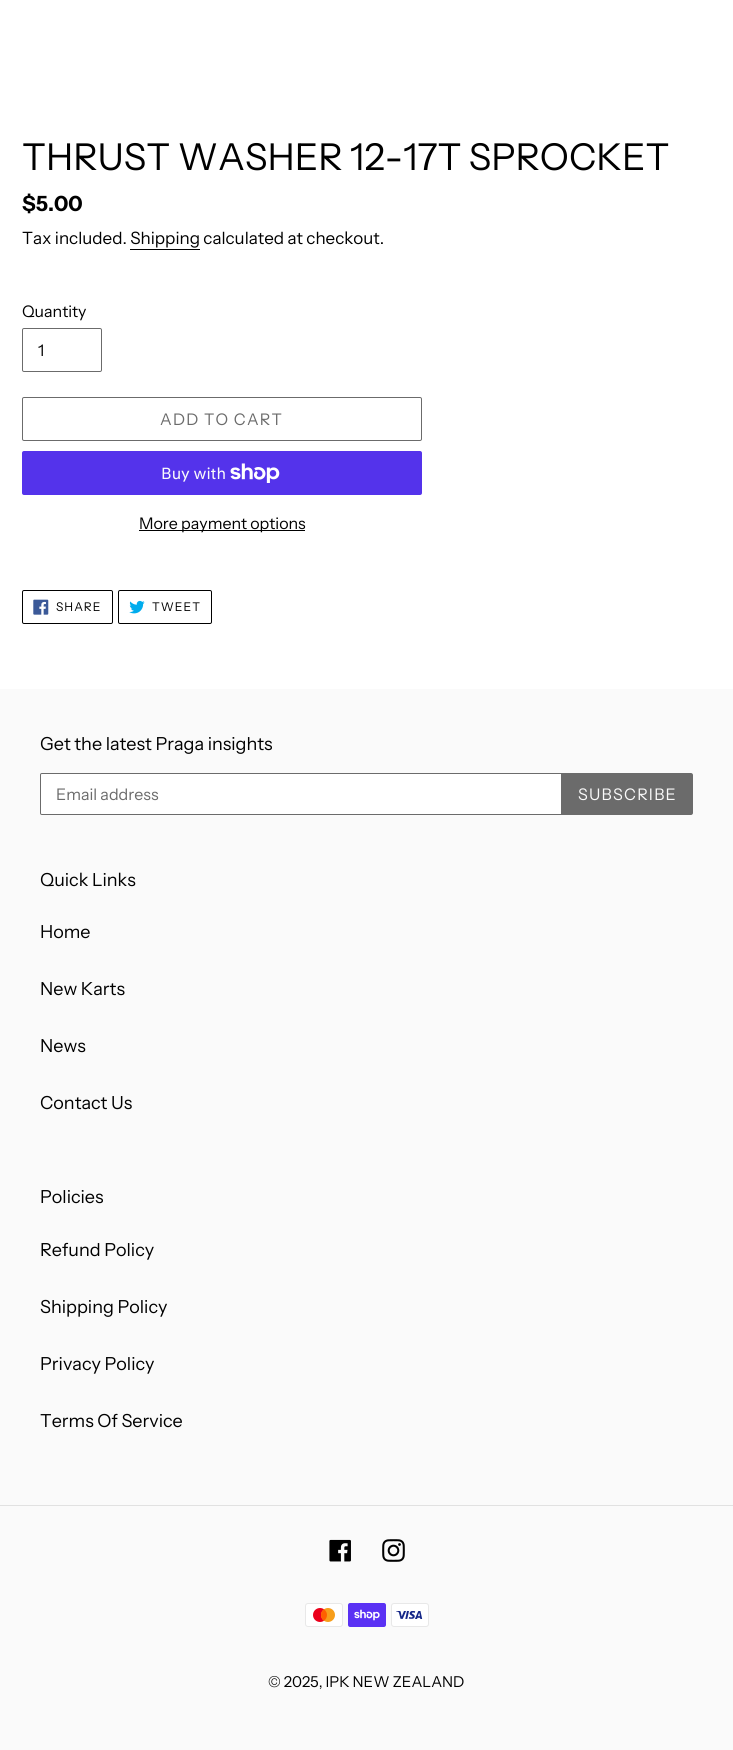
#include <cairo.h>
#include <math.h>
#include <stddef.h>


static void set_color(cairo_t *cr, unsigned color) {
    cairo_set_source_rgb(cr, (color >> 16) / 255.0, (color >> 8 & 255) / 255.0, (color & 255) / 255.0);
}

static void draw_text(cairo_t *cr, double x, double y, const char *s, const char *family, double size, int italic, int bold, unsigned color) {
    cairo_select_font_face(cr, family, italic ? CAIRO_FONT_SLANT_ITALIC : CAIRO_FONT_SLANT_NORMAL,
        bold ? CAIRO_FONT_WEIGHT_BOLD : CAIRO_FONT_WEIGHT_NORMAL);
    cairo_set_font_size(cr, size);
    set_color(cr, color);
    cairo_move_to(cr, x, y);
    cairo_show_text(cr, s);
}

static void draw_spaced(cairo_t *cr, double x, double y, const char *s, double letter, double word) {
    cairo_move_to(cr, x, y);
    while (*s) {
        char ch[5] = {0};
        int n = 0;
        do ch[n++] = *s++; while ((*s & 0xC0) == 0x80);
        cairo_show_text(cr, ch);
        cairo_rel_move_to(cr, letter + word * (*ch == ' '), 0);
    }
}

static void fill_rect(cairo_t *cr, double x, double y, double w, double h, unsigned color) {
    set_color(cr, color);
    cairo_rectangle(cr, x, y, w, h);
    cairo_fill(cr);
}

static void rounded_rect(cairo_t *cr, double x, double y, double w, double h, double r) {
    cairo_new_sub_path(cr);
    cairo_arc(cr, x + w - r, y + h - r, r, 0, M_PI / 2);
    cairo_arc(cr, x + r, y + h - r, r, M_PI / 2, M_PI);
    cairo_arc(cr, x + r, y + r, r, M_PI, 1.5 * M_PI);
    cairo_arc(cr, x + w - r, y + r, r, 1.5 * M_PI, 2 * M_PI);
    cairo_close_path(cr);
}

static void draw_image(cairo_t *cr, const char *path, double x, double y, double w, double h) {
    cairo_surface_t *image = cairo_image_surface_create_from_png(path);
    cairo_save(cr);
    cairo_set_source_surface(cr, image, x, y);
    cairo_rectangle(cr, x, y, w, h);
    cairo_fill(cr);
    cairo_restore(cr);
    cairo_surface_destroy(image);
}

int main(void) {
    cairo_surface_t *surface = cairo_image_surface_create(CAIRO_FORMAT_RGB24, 733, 1750);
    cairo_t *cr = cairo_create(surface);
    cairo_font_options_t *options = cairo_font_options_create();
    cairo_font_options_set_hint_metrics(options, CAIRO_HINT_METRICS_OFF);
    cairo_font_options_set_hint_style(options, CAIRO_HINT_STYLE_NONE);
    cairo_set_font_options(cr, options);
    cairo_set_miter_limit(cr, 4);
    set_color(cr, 0xFFFFFF);
    cairo_paint(cr);
    draw_text(cr, 22, 170, "THRUST WASHER 12-17T SPROCKET", "Instrument Sans", 37, 0, 0, 0x000000);
    draw_text(cr, 22, 211, "$5.00", "Instrument Sans", 21, 0, 1, 0x000000);
    draw_text(cr, 22, 244, "Tax included. Shipping calculated at checkout.", "Instrument Sans", 17, 0, 0, 0x000000);
    fill_rect(cr, 130, 249, 70, 1, 0x000000);
    draw_text(cr, 22, 317, "Quantity", "Instrument Sans", 16, 0, 0, 0x000000);
    rounded_rect(cr, 22.5, 328.5, 79, 43, 1.5);
    set_color(cr, 0x6B6B6B);
    cairo_set_line_width(cr, 1);
    cairo_stroke(cr);
    draw_text(cr, 38, 356, "1", "Instrument Sans", 16, 0, 0, 0x000000);
    rounded_rect(cr, 22.5, 397.5, 399, 43, 1.5);
    set_color(cr, 0x6B6B6B);
    cairo_stroke(cr);
    draw_spaced(cr, 160, 425, "ADD TO CART", 1.25, 0);
    set_color(cr, 0x5433EB);
    rounded_rect(cr, 22, 451, 400, 44, 2);
    cairo_fill(cr);
    draw_text(cr, 161, 479, "Buy with", "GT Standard", 16, 0, 0, 0xFAFAFA);
    draw_image(cr, "assets/img1.png", 230, 463, 50, 20);
    fill_rect(cr, 139, 530, 166, 1, 0x000000);
    draw_text(cr, 139, 529, "More payment options", "Instrument Sans", 16, 0, 0, 0x000000);
    rounded_rect(cr, 22.5, 590.5, 90, 33, 1.5);
    cairo_stroke(cr);
    draw_image(cr, "assets/img2.png", 33, 599, 16, 16);
    cairo_set_font_size(cr, 12);
    draw_spaced(cr, 56, 611, "SHARE", 1, 0);
    rounded_rect(cr, 118.5, 590.5, 93, 33, 1.5);
    cairo_stroke(cr);
    draw_image(cr, "assets/img3.png", 129, 600, 16, 14);
    draw_spaced(cr, 152, 611, "TWEET", 1, 0);
    fill_rect(cr, 0, 689, 733, 1061, 0xFAFAFA);
    draw_text(cr, 40, 750, "Get the latest Praga insights", "Instrument Sans", 18, 0, 0, 0x000000);
    set_color(cr, 0xFFFFFF);
    cairo_new_path(cr);
    cairo_move_to(cr, 42, 773.5);
    cairo_line_to(cr, 561.5, 773.5);
    cairo_line_to(cr, 561.5, 814.5);
    cairo_line_to(cr, 42, 814.5);
    cairo_curve_to(cr, 41, 814.5, 40.5, 814, 40.5, 813);
    cairo_line_to(cr, 40.5, 775);
    cairo_curve_to(cr, 40.5, 774, 41, 773.5, 42, 773.5);
    cairo_close_path(cr);
    cairo_fill_preserve(cr);
    set_color(cr, 0x6B6B6B);
    cairo_stroke(cr);
    draw_text(cr, 56, 800, "Email address", "Instrument Sans", 16, 0, 0, 0x6B6B6B);
    cairo_new_path(cr);
    cairo_move_to(cr, 562, 773);
    cairo_line_to(cr, 691, 773);
    cairo_curve_to(cr, 692, 773, 693, 774, 693, 775);
    cairo_line_to(cr, 693, 813);
    cairo_curve_to(cr, 693, 814, 692, 815, 691, 815);
    cairo_line_to(cr, 562, 815);
    cairo_close_path(cr);
    cairo_fill(cr);
    set_color(cr, 0xFAFAFA);
    draw_spaced(cr, 578, 800, "SUBSCRIBE", 1.25, 0);
    draw_text(cr, 40, 886, "Quick Links", "Instrument Sans", 18, 0, 0, 0x000000);
    draw_text(cr, 40, 938, "Home", "Instrument Sans", 18, 0, 0, 0x000000);
    draw_text(cr, 40, 995, "New Karts", "Instrument Sans", 18, 0, 0, 0x000000);
    draw_text(cr, 40, 1052, "News", "Instrument Sans", 18, 0, 0, 0x000000);
    draw_text(cr, 40, 1109, "Contact Us", "Instrument Sans", 18, 0, 0, 0x000000);
    draw_text(cr, 40, 1203, "Policies", "Instrument Sans", 18, 0, 0, 0x000000);
    draw_text(cr, 40, 1256, "Refund Policy", "Instrument Sans", 18, 0, 0, 0x000000);
    draw_text(cr, 40, 1313, "Shipping Policy", "Instrument Sans", 18, 0, 0, 0x000000);
    draw_text(cr, 40, 1370, "Privacy Policy", "Instrument Sans", 18, 0, 0, 0x000000);
    draw_text(cr, 40, 1427, "Terms Of Service", "Instrument Sans", 18, 0, 0, 0x000000);
    fill_rect(cr, 0, 1505, 733, 1, 0xE1E1E1);
    draw_image(cr, "assets/img4.png", 329, 1539, 22, 23);
    draw_image(cr, "assets/img5.png", 382, 1539, 23, 23);
    draw_image(cr, "assets/img6.png", 305, 1603, 38, 24);
    draw_image(cr, "assets/img7.png", 348, 1603, 38, 24);
    draw_image(cr, "assets/img8.png", 391, 1603, 38, 24);
    draw_text(cr, 268, 1687, "© 2025, IPK NEW ZEALAND", "Instrument Sans", 15, 0, 0, 0x000000);
    cairo_surface_write_to_png(surface, "output.png");
    cairo_font_options_destroy(options);
    cairo_destroy(cr);
    cairo_surface_destroy(surface);
    return 0;
}
